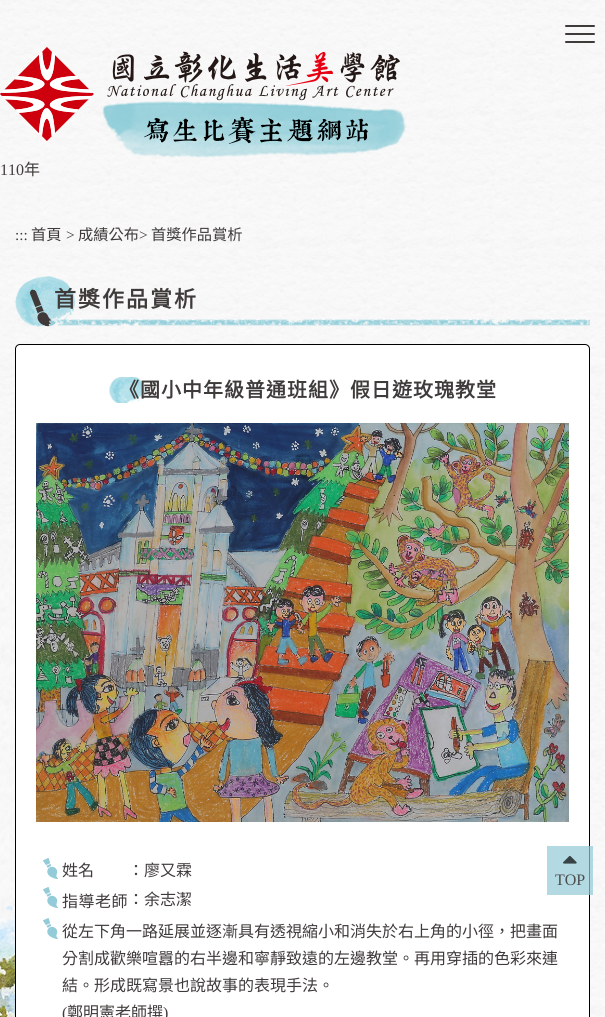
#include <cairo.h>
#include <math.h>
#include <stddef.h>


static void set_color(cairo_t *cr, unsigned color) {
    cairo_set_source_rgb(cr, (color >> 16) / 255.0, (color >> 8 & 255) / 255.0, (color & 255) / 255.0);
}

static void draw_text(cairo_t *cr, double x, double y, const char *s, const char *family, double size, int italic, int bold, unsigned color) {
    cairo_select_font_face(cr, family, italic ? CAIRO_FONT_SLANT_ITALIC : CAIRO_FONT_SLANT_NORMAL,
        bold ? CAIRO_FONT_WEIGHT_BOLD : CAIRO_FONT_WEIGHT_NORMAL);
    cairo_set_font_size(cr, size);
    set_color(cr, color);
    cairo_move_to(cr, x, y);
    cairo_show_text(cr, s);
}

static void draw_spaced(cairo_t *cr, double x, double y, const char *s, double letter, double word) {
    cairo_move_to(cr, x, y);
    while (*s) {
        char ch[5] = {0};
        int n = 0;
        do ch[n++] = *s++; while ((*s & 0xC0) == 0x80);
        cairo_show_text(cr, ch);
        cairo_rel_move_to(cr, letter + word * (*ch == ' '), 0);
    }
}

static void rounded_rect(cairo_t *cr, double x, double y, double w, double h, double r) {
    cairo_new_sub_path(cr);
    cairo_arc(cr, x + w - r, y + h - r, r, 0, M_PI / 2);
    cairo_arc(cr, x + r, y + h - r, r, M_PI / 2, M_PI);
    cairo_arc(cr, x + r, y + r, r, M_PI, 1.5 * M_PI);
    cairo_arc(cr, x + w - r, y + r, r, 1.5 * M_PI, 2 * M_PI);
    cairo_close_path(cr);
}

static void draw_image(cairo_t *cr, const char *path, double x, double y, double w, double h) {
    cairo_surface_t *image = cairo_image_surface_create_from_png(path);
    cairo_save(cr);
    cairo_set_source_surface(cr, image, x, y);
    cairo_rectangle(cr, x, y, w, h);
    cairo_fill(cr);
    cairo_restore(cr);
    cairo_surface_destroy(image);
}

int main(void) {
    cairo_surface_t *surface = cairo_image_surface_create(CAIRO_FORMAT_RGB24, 605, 1017);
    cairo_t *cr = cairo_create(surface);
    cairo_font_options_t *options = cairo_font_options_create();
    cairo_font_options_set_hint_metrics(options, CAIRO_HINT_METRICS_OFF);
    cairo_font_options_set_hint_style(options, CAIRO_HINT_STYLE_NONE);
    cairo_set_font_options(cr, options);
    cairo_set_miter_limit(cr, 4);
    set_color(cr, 0xFFFFFF);
    cairo_paint(cr);
    draw_image(cr, "assets/img1.png", 0, 0, 605, 1017);
    set_color(cr, 0x3F3B3A);
    rounded_rect(cr, 565, 25, 30, 2, 1);
    cairo_fill(cr);
    rounded_rect(cr, 565, 33, 30, 2, 1);
    cairo_fill(cr);
    rounded_rect(cr, 565, 41, 30, 2, 1);
    cairo_fill(cr);
    draw_image(cr, "assets/img2.png", 0, 47, 406, 111);
    draw_text(cr, 0, 175, "110", "Liberation Serif", 16, 0, 0, 0x3F3B3A);
    draw_text(cr, 24, 175, "年", "Noto Sans CJK TC", 16, 0, 0, 0x3F3B3A);
    draw_text(cr, 15, 240, ":::", "Liberation Serif", 15.25, 0, 0, 0x3F3B3A);
    draw_text(cr, 31, 240, "首頁", "Noto Sans CJK TC", 15.25, 0, 0, 0x3F3B3A);
    draw_text(cr, 66, 240, ">", "Liberation Serif", 15.25, 0, 0, 0x3F3B3A);
    draw_text(cr, 78, 240, "成績公布", "Noto Sans CJK TC", 15.25, 0, 0, 0x3F3B3A);
    draw_text(cr, 139, 240, ">", "Liberation Serif", 15.25, 0, 0, 0x3F3B3A);
    draw_text(cr, 151, 240, "首獎作品賞析", "Noto Sans CJK TC", 15.25, 0, 0, 0x3F3B3A);
    draw_image(cr, "assets/img3.png", 15, 276, 575, 51);
    cairo_select_font_face(cr, "Noto Sans CJK TC", CAIRO_FONT_SLANT_NORMAL, CAIRO_FONT_WEIGHT_BOLD);
    cairo_set_font_size(cr, 22);
    draw_spaced(cr, 54, 307, "首獎作品賞析", 2, 0);
    set_color(cr, 0xFFFFFF);
    rounded_rect(cr, 15.5, 344.5, 574, 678, 4.5);
    cairo_fill_preserve(cr);
    set_color(cr, 0x000000);
    cairo_set_line_width(cr, 1);
    cairo_stroke(cr);
    draw_image(cr, "assets/img4.png", 109, 377, 36, 26);
    cairo_set_font_size(cr, 20);
    set_color(cr, 0x3F3B3A);
    draw_spaced(cr, 119, 397, "《國小中年級普通班組》假日遊玫瑰教堂", 1, 0);
    draw_image(cr, "assets/img5.png", 36, 423, 533, 399);
    draw_image(cr, "assets/img6.png", 43, 858, 15, 21);
    draw_text(cr, 62, 876, "姓名", "Noto Sans CJK TC", 16, 0, 0, 0x3F3B3A);
    draw_text(cr, 128, 876, "：廖又霖", "Noto Sans CJK TC", 16, 0, 0, 0x3F3B3A);
    draw_image(cr, "assets/img6.png", 43, 887, 15, 21);
    draw_spaced(cr, 62, 907, "指導老師", 0.5, 0);
    draw_text(cr, 128, 905, "：余志潔", "Noto Sans CJK TC", 16, 0, 0, 0x3F3B3A);
    draw_image(cr, "assets/img6.png", 43, 918, 15, 21);
    draw_text(cr, 62, 937, "從左下角一路延展並逐漸具有透視縮小和消失於右上角的小徑，把畫面", "Noto Sans CJK TC", 16, 0, 0, 0x3F3B3A);
    draw_text(cr, 62, 964, "分割成歡樂喧囂的右半邊和寧靜致遠的左邊教堂。再用穿插的色彩來連", "Noto Sans CJK TC", 16, 0, 0, 0x3F3B3A);
    draw_text(cr, 62, 991, "結。形成既寫景也說故事的表現手法。", "Noto Sans CJK TC", 16, 0, 0, 0x3F3B3A);
    draw_text(cr, 62, 1018, "(", "Liberation Serif", 16, 0, 0, 0x3F3B3A);
    draw_text(cr, 67, 1018, "鄭明憲老師撰", "Noto Sans CJK TC", 16, 0, 0, 0x3F3B3A);
    draw_text(cr, 163, 1018, ")", "Liberation Serif", 16, 0, 0, 0x3F3B3A);
    cairo_set_source_rgba(cr, 0.576, 0.796, 0.847, 0.7);
    cairo_rectangle(cr, 547, 846, 46, 49);
    cairo_fill(cr);
    draw_image(cr, "assets/img7.png", 563, 855, 14, 9);
    draw_text(cr, 555, 885, "TOP", "Liberation Serif", 16, 0, 0, 0x4D4D4D);
    draw_image(cr, "assets/img8.png", 0, 904, 15, 113);
    cairo_surface_write_to_png(surface, "output.png");
    cairo_font_options_destroy(options);
    cairo_destroy(cr);
    cairo_surface_destroy(surface);
    return 0;
}
